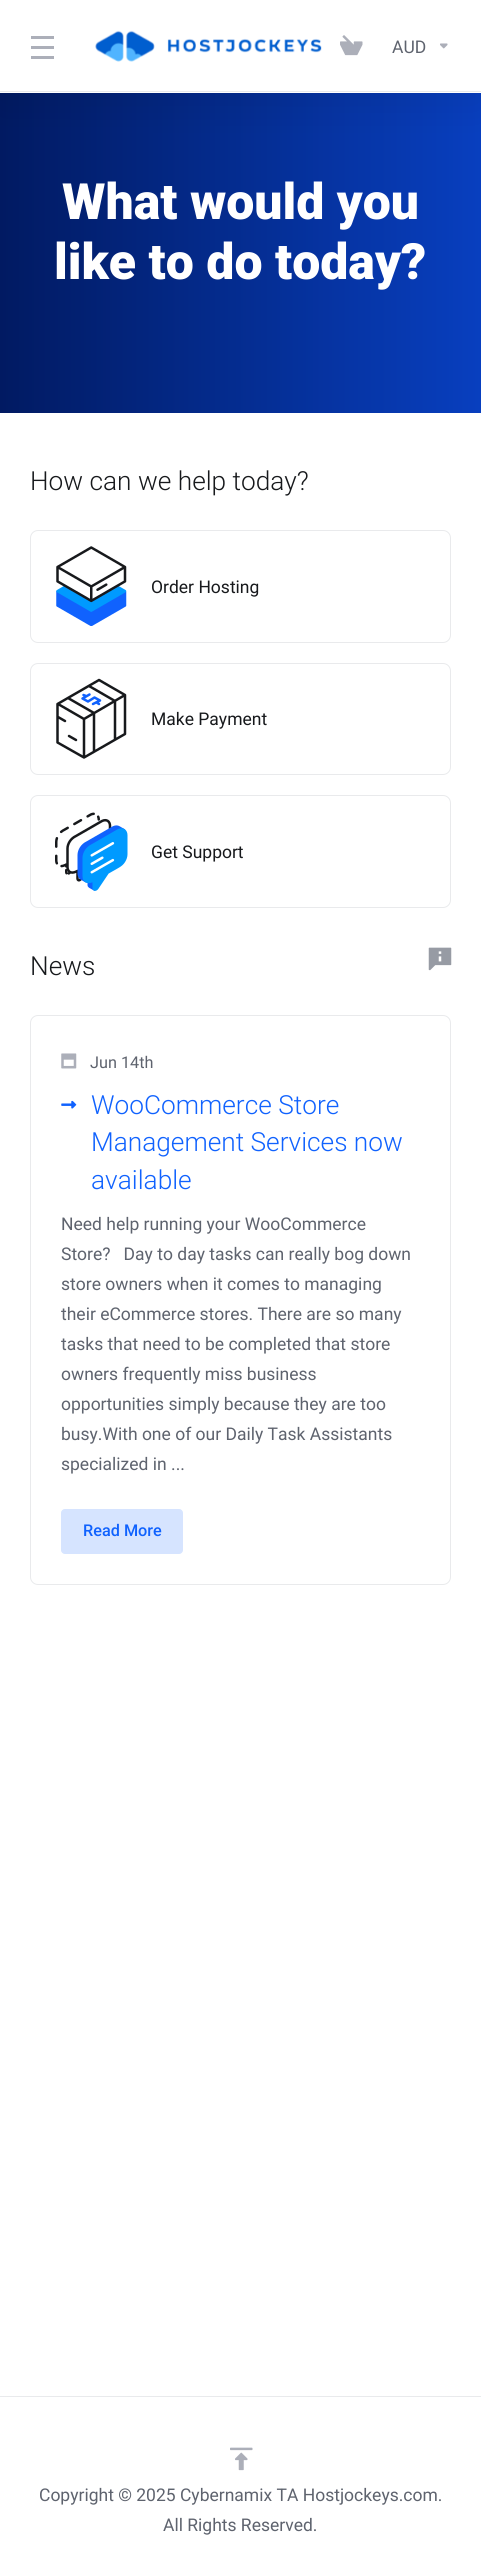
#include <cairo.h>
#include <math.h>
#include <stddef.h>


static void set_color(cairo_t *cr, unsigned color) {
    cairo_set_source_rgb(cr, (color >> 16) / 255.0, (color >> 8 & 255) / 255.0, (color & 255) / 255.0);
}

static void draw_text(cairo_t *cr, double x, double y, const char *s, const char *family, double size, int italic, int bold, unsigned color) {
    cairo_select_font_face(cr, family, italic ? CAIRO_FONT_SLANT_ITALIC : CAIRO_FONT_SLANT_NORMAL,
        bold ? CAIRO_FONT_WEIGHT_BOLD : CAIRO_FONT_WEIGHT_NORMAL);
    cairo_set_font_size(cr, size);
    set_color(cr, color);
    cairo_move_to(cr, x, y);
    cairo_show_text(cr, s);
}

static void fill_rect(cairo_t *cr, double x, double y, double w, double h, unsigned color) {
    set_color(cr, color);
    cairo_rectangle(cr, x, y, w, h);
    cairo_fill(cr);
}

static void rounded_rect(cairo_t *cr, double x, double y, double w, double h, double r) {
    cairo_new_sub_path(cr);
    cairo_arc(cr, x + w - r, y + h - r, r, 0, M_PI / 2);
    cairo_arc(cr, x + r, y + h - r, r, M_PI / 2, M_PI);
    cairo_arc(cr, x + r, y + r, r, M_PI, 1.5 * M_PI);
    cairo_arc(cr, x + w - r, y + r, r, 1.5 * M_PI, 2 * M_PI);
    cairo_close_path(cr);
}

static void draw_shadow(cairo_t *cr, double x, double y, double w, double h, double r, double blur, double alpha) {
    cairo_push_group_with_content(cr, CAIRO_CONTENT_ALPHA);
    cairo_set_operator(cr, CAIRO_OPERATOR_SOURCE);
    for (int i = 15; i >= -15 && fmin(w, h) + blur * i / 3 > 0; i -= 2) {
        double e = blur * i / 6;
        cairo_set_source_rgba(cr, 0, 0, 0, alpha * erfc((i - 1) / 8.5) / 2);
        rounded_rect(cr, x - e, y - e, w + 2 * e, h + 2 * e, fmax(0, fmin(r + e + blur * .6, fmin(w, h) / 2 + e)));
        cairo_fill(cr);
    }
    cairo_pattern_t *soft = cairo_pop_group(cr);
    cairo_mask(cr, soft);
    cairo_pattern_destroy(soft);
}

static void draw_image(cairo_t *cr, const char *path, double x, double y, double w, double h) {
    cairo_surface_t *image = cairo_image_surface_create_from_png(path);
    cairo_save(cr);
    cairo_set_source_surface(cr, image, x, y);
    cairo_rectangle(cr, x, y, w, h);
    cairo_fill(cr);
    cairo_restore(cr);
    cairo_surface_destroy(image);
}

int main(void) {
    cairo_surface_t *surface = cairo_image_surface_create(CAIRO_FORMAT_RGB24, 481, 2560);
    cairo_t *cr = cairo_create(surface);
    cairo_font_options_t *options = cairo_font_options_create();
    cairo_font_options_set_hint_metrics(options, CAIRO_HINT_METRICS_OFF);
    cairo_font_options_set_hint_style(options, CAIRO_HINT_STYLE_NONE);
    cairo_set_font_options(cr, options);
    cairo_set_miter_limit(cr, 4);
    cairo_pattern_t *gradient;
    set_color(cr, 0xFFFFFF);
    cairo_paint(cr);
    gradient = cairo_pattern_create_linear(0, 253, 481, 253);
    cairo_pattern_add_color_stop_rgba(gradient, 0, 0.004, 0.102, 0.384, 1);
    cairo_pattern_add_color_stop_rgba(gradient, 1, 0.031, 0.247, 0.749, 1);
    cairo_set_source(cr, gradient);
    cairo_pattern_destroy(gradient);
    cairo_rectangle(cr, 0, 93, 481, 320);
    cairo_fill(cr);
    set_color(cr, 0x000000);
    draw_shadow(cr, 0, 10, 481, 93, 0, 20, 0.08);
    fill_rect(cr, 0, 0, 481, 93, 0xFFFFFF);
    fill_rect(cr, 0, 91, 481, 1, 0xE9EAEC);
    fill_rect(cr, 31, 36, 23, 3, 0xACAFB9);
    fill_rect(cr, 31, 46, 23, 3, 0xACAFB9);
    fill_rect(cr, 31, 56, 23, 3, 0xACAFB9);
    draw_image(cr, "assets/img1.png", 95, 30, 227, 32);
    draw_image(cr, "assets/img2.png", 340, 35, 23, 21);
    draw_text(cr, 392, 53, "AUD", "Roboto", 17.5, 0, 0, 0x5E636E);
    draw_image(cr, "assets/img3.png", 440, 43, 8, 6);
    draw_text(cr, 62, 219, "What would you", "Roboto Black", 50, 0, 0, 0xFFFFFF);
    draw_text(cr, 54, 279, "like to do today?", "Roboto Black", 50, 0, 0, 0xFFFFFF);
    draw_text(cr, 30, 490, "How can we help today?", "Roboto Light", 26.25, 0, 0, 0x17191C);
    rounded_rect(cr, 30.5, 530.5, 420, 112, 7.5);
    set_color(cr, 0xE9EAEC);
    cairo_set_line_width(cr, 1);
    cairo_stroke(cr);
    draw_image(cr, "assets/img4.png", 56, 546, 71, 80);
    draw_text(cr, 151, 593, "Order Hosting", "Roboto", 17.5, 0, 0, 0x17191C);
    rounded_rect(cr, 30.5, 663.5, 420, 111, 7.5);
    set_color(cr, 0xE9EAEC);
    cairo_stroke(cr);
    cairo_new_path(cr);
    cairo_move_to(cr, 89.5, 694.5);
    cairo_line_to(cr, 82.5, 698.5);
    cairo_line_to(cr, 88, 701.5);
    cairo_line_to(cr, 94.5, 697.5);
    cairo_line_to(cr, 100, 700.5);
    cairo_line_to(cr, 93, 704);
    cairo_move_to(cr, 83.5, 695);
    cairo_line_to(cr, 86, 696);
    cairo_move_to(cr, 96.5, 702.5);
    cairo_line_to(cr, 99, 704);
    set_color(cr, 0x1062FE);
    cairo_set_line_width(cr, 2.5);
    cairo_set_line_cap(cr, CAIRO_LINE_CAP_ROUND);
    cairo_set_line_join(cr, CAIRO_LINE_JOIN_ROUND);
    cairo_stroke(cr);
    cairo_new_path(cr);
    cairo_move_to(cr, 69, 736);
    cairo_line_to(cr, 76, 740);
    cairo_move_to(cr, 68, 698);
    cairo_line_to(cr, 94, 713);
    cairo_line_to(cr, 94, 751);
    cairo_move_to(cr, 89, 686);
    cairo_line_to(cr, 115, 701);
    cairo_line_to(cr, 115, 739);
    cairo_move_to(cr, 58, 717);
    cairo_line_to(cr, 65, 721);
    cairo_move_to(cr, 58, 704);
    cairo_line_to(cr, 84, 719);
    cairo_line_to(cr, 125, 695);
    cairo_move_to(cr, 84, 719);
    cairo_line_to(cr, 84, 756);
    cairo_move_to(cr, 57.5, 704);
    cairo_line_to(cr, 57.5, 742.5);
    cairo_line_to(cr, 84, 757.5);
    cairo_line_to(cr, 125, 734);
    cairo_line_to(cr, 125, 695);
    cairo_line_to(cr, 99, 680);
    cairo_close_path(cr);
    set_color(cr, 0x17191C);
    cairo_stroke(cr);
    draw_text(cr, 151, 725, "Make Payment", "Roboto", 17.5, 0, 0, 0x17191C);
    rounded_rect(cr, 30.5, 795.5, 420, 112, 7.5);
    set_color(cr, 0xE9EAEC);
    cairo_set_line_width(cr, 1);
    cairo_set_line_cap(cr, CAIRO_LINE_CAP_BUTT);
    cairo_set_line_join(cr, CAIRO_LINE_JOIN_MITER);
    cairo_stroke(cr);
    draw_image(cr, "assets/img5.png", 55, 812, 73, 79);
    draw_text(cr, 151, 858, "Get Support", "Roboto", 17.5, 0, 0, 0x17191C);
    draw_text(cr, 30, 975, "News", "Roboto Light", 26.25, 0, 0, 0x17191C);
    draw_image(cr, "assets/img6.png", 428, 947, 24, 24);
    rounded_rect(cr, 30.5, 1015.5, 420, 569, 7.5);
    set_color(cr, 0xE9EAEC);
    cairo_stroke(cr);
    draw_image(cr, "assets/img7.png", 61, 1053, 16, 16);
    draw_text(cr, 90, 1068, "Jun 14th", "Roboto", 16.25, 0, 0, 0x5E636E);
    draw_image(cr, "assets/img8.png", 61, 1100, 16, 9);
    draw_text(cr, 91, 1114, "WooCommerce Store", "Roboto Light", 26.25, 0, 0, 0x1062FE);
    draw_text(cr, 91, 1151, "Management Services now", "Roboto Light", 26.25, 0, 0, 0x1062FE);
    draw_text(cr, 91, 1189, "available", "Roboto Light", 26.25, 0, 0, 0x1062FE);
    draw_text(cr, 61, 1230, "Need help running your WooCommerce", "Roboto", 17.5, 0, 0, 0x5E636E);
    draw_text(cr, 61, 1260, "Store?   Day to day tasks can really bog down", "Roboto", 17.5, 0, 0, 0x5E636E);
    draw_text(cr, 61, 1290, "store owners when it comes to managing", "Roboto", 17.5, 0, 0, 0x5E636E);
    draw_text(cr, 61, 1320, "their eCommerce stores. There are so many", "Roboto", 17.5, 0, 0, 0x5E636E);
    draw_text(cr, 61, 1350, "tasks that need to be completed that store", "Roboto", 17.5, 0, 0, 0x5E636E);
    draw_text(cr, 61, 1380, "owners frequently miss business", "Roboto", 17.5, 0, 0, 0x5E636E);
    draw_text(cr, 61, 1410, "opportunities simply because they are too", "Roboto", 17.5, 0, 0, 0x5E636E);
    draw_text(cr, 61, 1440, "busy.With one of our Daily Task Assistants", "Roboto", 17.5, 0, 0, 0x5E636E);
    draw_text(cr, 61, 1470, "specialized in ...", "Roboto", 17.5, 0, 0, 0x5E636E);
    set_color(cr, 0xD6E4FF);
    rounded_rect(cr, 61.5, 1509.5, 121, 44, 3.5);
    cairo_fill_preserve(cr);
    cairo_stroke(cr);
    draw_text(cr, 83, 1536, "Read More", "Roboto Medium", 16.25, 0, 0, 0x1062FE);
    fill_rect(cr, 0, 2396, 481, 1, 0xE9EAEC);
    draw_image(cr, "assets/img9.png", 230, 2447, 23, 24);
    draw_text(cr, 39, 2501, "Copyright © 2025 Cybernamix TA Hostjockeys.com.", "Roboto", 17.5, 0, 0, 0x5E636E);
    draw_text(cr, 163, 2531, "All Rights Reserved.", "Roboto", 17.5, 0, 0, 0x5E636E);
    cairo_surface_write_to_png(surface, "output.png");
    cairo_font_options_destroy(options);
    cairo_destroy(cr);
    cairo_surface_destroy(surface);
    return 0;
}
